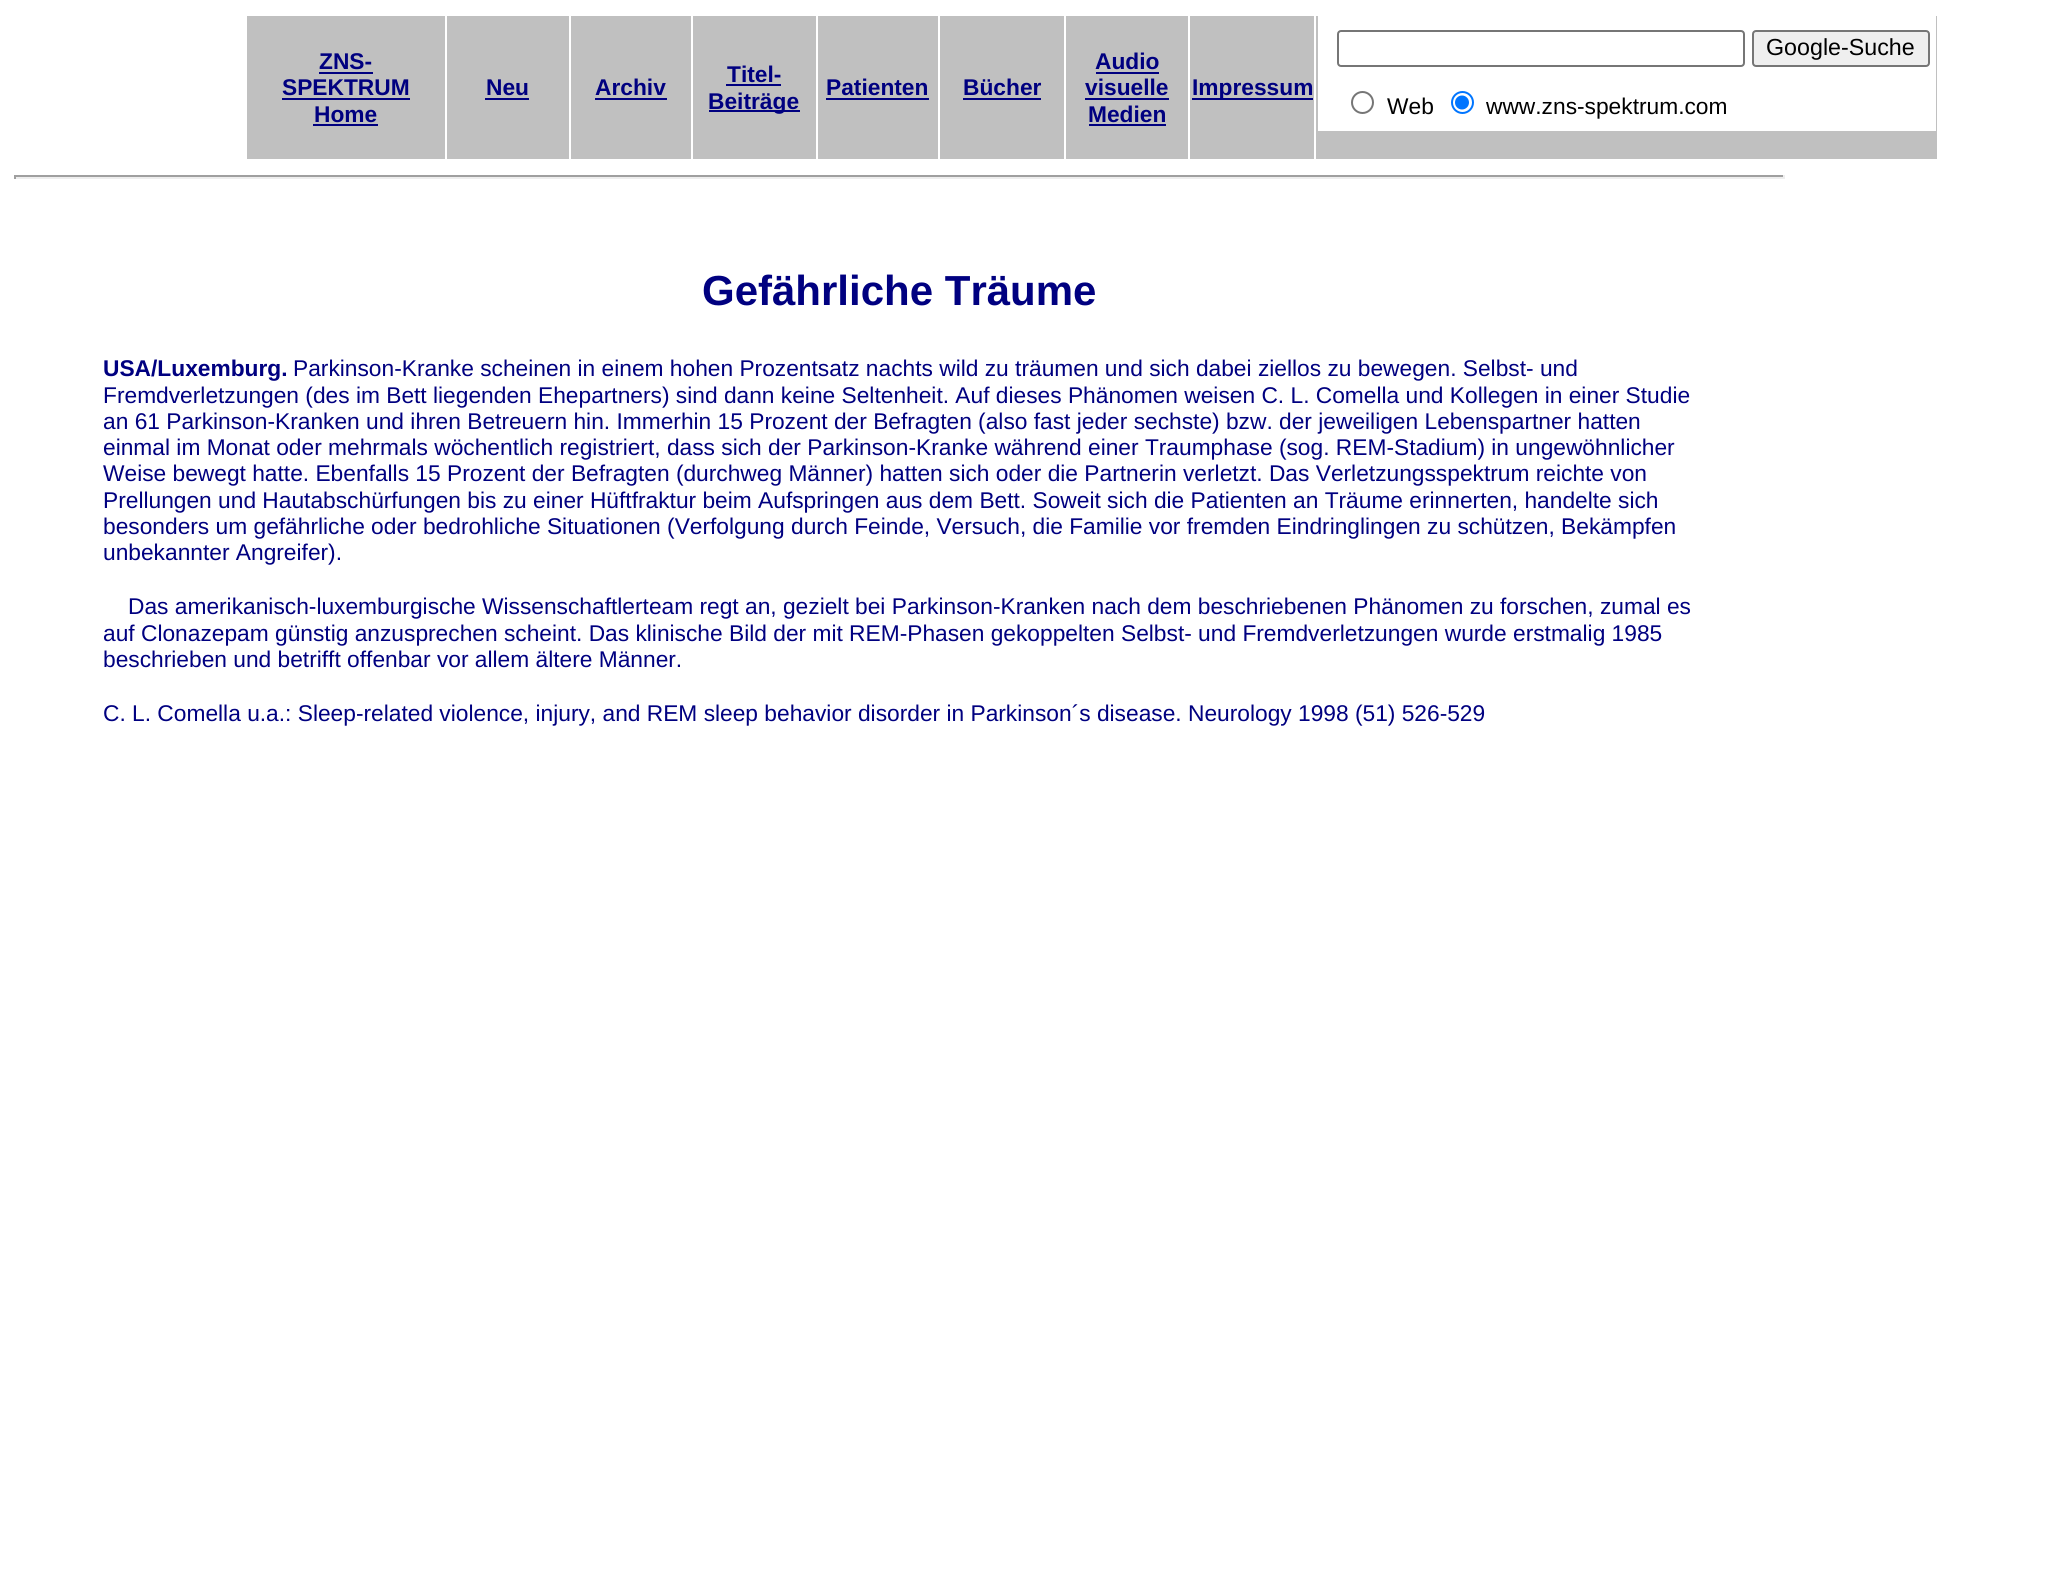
#include <cairo.h>
#include <math.h>
#include <stddef.h>


static void set_color(cairo_t *cr, unsigned color) {
    cairo_set_source_rgb(cr, (color >> 16) / 255.0, (color >> 8 & 255) / 255.0, (color & 255) / 255.0);
}

static void draw_text(cairo_t *cr, double x, double y, const char *s, const char *family, double size, int italic, int bold, unsigned color) {
    cairo_select_font_face(cr, family, italic ? CAIRO_FONT_SLANT_ITALIC : CAIRO_FONT_SLANT_NORMAL,
        bold ? CAIRO_FONT_WEIGHT_BOLD : CAIRO_FONT_WEIGHT_NORMAL);
    cairo_set_font_size(cr, size);
    set_color(cr, color);
    cairo_move_to(cr, x, y);
    cairo_show_text(cr, s);
}

static void fill_rect(cairo_t *cr, double x, double y, double w, double h, unsigned color) {
    set_color(cr, color);
    cairo_rectangle(cr, x, y, w, h);
    cairo_fill(cr);
}

static void rounded_rect(cairo_t *cr, double x, double y, double w, double h, double r) {
    cairo_new_sub_path(cr);
    cairo_arc(cr, x + w - r, y + h - r, r, 0, M_PI / 2);
    cairo_arc(cr, x + r, y + h - r, r, M_PI / 2, M_PI);
    cairo_arc(cr, x + r, y + r, r, M_PI, 1.5 * M_PI);
    cairo_arc(cr, x + w - r, y + r, r, 1.5 * M_PI, 2 * M_PI);
    cairo_close_path(cr);
}

int main(void) {
    cairo_surface_t *surface = cairo_image_surface_create(CAIRO_FORMAT_RGB24, 2051, 1581);
    cairo_t *cr = cairo_create(surface);
    cairo_font_options_t *options = cairo_font_options_create();
    cairo_font_options_set_hint_metrics(options, CAIRO_HINT_METRICS_OFF);
    cairo_font_options_set_hint_style(options, CAIRO_HINT_STYLE_NONE);
    cairo_set_font_options(cr, options);
    cairo_set_miter_limit(cr, 4);
    set_color(cr, 0xFFFFFF);
    cairo_paint(cr);
    fill_rect(cr, 247, 16, 198, 143, 0xC0C0C0);
    draw_text(cr, 319, 69, "ZNS-", "Liberation Sans", 22.75, 0, 1, 0x000080);
    fill_rect(cr, 319, 72, 54, 2, 0x000080);
    draw_text(cr, 282, 95, "SPEKTRUM", "Liberation Sans", 22.75, 0, 1, 0x000080);
    fill_rect(cr, 282, 98, 128, 2, 0x000080);
    draw_text(cr, 314, 122, "Home", "Liberation Sans", 22.75, 0, 1, 0x000080);
    fill_rect(cr, 313, 124, 65, 2, 0x000080);
    fill_rect(cr, 447, 16, 122, 143, 0xC0C0C0);
    draw_text(cr, 486, 95, "Neu", "Liberation Sans", 22.75, 0, 1, 0x000080);
    fill_rect(cr, 485, 98, 44, 2, 0x000080);
    fill_rect(cr, 571, 16, 120, 143, 0xC0C0C0);
    draw_text(cr, 595, 95, "Archiv", "Liberation Sans", 22.75, 0, 1, 0x000080);
    fill_rect(cr, 595, 98, 72, 2, 0x000080);
    fill_rect(cr, 693, 16, 123, 143, 0xC0C0C0);
    draw_text(cr, 727, 82, "Titel-", "Liberation Sans", 22.75, 0, 1, 0x000080);
    fill_rect(cr, 726, 84, 55, 2, 0x000080);
    fill_rect(cr, 709, 110, 91, 2, 0x000080);
    draw_text(cr, 708, 109, "Beiträge", "Liberation Sans", 22.75, 0, 1, 0x000080);
    fill_rect(cr, 818, 16, 120, 143, 0xC0C0C0);
    draw_text(cr, 826, 95, "Patienten", "Liberation Sans", 22.75, 0, 1, 0x000080);
    fill_rect(cr, 826, 98, 103, 2, 0x000080);
    fill_rect(cr, 940, 16, 124, 143, 0xC0C0C0);
    draw_text(cr, 963, 95, "Bücher", "Liberation Sans", 22.75, 0, 1, 0x000080);
    fill_rect(cr, 963, 98, 78, 2, 0x000080);
    fill_rect(cr, 1066, 16, 122, 143, 0xC0C0C0);
    draw_text(cr, 1095, 69, "Audio", "Liberation Sans", 22.75, 0, 1, 0x000080);
    fill_rect(cr, 1096, 72, 63, 2, 0x000080);
    draw_text(cr, 1085, 95, "visuelle", "Liberation Sans", 22.75, 0, 1, 0x000080);
    fill_rect(cr, 1085, 98, 84, 2, 0x000080);
    draw_text(cr, 1088, 122, "Medien", "Liberation Sans", 22.75, 0, 1, 0x000080);
    fill_rect(cr, 1089, 124, 77, 2, 0x000080);
    fill_rect(cr, 1190, 16, 124, 143, 0xC0C0C0);
    fill_rect(cr, 1192, 98, 121, 2, 0x000080);
    draw_text(cr, 1192, 95, "Impressum", "Liberation Sans", 22.75, 0, 1, 0x000080);
    fill_rect(cr, 1316, 16, 621, 143, 0xC0C0C0);
    fill_rect(cr, 1318, 16, 618, 115, 0xFFFFFF);
    rounded_rect(cr, 1338, 31, 406, 35, 3);
    set_color(cr, 0x767676);
    cairo_stroke(cr);
    set_color(cr, 0xEFEFEF);
    rounded_rect(cr, 1753, 31, 176, 35, 3);
    cairo_fill_preserve(cr);
    set_color(cr, 0x767676);
    cairo_stroke(cr);
    draw_text(cr, 1766, 55, "Google-Suche", "Liberation Sans", 23.25, 0, 0, 0x000000);
    cairo_new_path(cr);
    cairo_arc(cr, 1362.5, 102.5, 10.5, 0, 2 * M_PI);
    set_color(cr, 0x767676);
    cairo_stroke(cr);
    draw_text(cr, 1387, 114, "Web", "Liberation Sans", 22.75, 0, 0, 0x000000);
    cairo_new_path(cr);
    cairo_arc(cr, 1462.5, 102.5, 10.5, 0, 2 * M_PI);
    set_color(cr, 0x0075FF);
    cairo_stroke(cr);
    cairo_arc(cr, 1462, 102.5, 7, 0, 2 * M_PI);
    cairo_fill(cr);
    draw_text(cr, 1486, 114, "www.zns-spektrum.com", "Liberation Sans", 22.75, 0, 0, 0x000000);
    fill_rect(cr, 14, 175, 1771, 2, 0x9F9F9F);
    fill_rect(cr, 1783, 175, 2, 4, 0xEEEEEE);
    fill_rect(cr, 14, 177, 1771, 2, 0xEEEEEE);
    fill_rect(cr, 14, 175, 2, 4, 0x9F9F9F);
    draw_text(cr, 702, 305, "Gefährliche Träume", "Liberation Sans", 42, 0, 1, 0x000080);
    draw_text(cr, 103, 376, "USA/Luxemburg.", "Liberation Sans", 22.75, 0, 1, 0x000080);
    draw_text(cr, 293, 376, "Parkinson-Kranke scheinen in einem hohen Prozentsatz nachts wild zu träumen und sich dabei ziellos zu bewegen. Selbst- und", "Liberation Sans", 22.75, 0, 0, 0x000080);
    draw_text(cr, 103, 403, "Fremdverletzungen (des im Bett liegenden Ehepartners) sind dann keine Seltenheit. Auf dieses Phänomen weisen C. L. Comella und Kollegen in einer Studie", "Liberation Sans", 22.75, 0, 0, 0x000080);
    draw_text(cr, 103, 429, "an 61 Parkinson-Kranken und ihren Betreuern hin. Immerhin 15 Prozent der Befragten (also fast jeder sechste) bzw. der jeweiligen Lebenspartner hatten", "Liberation Sans", 22.75, 0, 0, 0x000080);
    draw_text(cr, 103, 455, "einmal im Monat oder mehrmals wöchentlich registriert, dass sich der Parkinson-Kranke während einer Traumphase (sog. REM-Stadium) in ungewöhnlicher", "Liberation Sans", 22.75, 0, 0, 0x000080);
    draw_text(cr, 103, 481, "Weise bewegt hatte. Ebenfalls 15 Prozent der Befragten (durchweg Männer) hatten sich oder die Partnerin verletzt. Das Verletzungsspektrum reichte von", "Liberation Sans", 22.75, 0, 0, 0x000080);
    draw_text(cr, 103, 508, "Prellungen und Hautabschürfungen bis zu einer Hüftfraktur beim Aufspringen aus dem Bett. Soweit sich die Patienten an Träume erinnerten, handelte sich", "Liberation Sans", 22.75, 0, 0, 0x000080);
    draw_text(cr, 103, 534, "besonders um gefährliche oder bedrohliche Situationen (Verfolgung durch Feinde, Versuch, die Familie vor fremden Eindringlingen zu schützen, Bekämpfen", "Liberation Sans", 22.75, 0, 0, 0x000080);
    draw_text(cr, 103, 560, "unbekannter Angreifer).", "Liberation Sans", 22.75, 0, 0, 0x000080);
    draw_text(cr, 128, 614, "Das amerikanisch-luxemburgische Wissenschaftlerteam regt an, gezielt bei Parkinson-Kranken nach dem beschriebenen Phänomen zu forschen, zumal es", "Liberation Sans", 22.75, 0, 0, 0x000080);
    draw_text(cr, 103, 641, "auf Clonazepam günstig anzusprechen scheint. Das klinische Bild der mit REM-Phasen gekoppelten Selbst- und Fremdverletzungen wurde erstmalig 1985", "Liberation Sans", 22.75, 0, 0, 0x000080);
    draw_text(cr, 103, 667, "beschrieben und betrifft offenbar vor allem ältere Männer.", "Liberation Sans", 22.75, 0, 0, 0x000080);
    draw_text(cr, 103, 721, "C. L. Comella u.a.: Sleep-related violence, injury, and REM sleep behavior disorder in Parkinson´s disease. Neurology 1998 (51) 526-529", "Liberation Sans", 22.75, 0, 0, 0x000080);
    cairo_surface_write_to_png(surface, "output.png");
    cairo_font_options_destroy(options);
    cairo_destroy(cr);
    cairo_surface_destroy(surface);
    return 0;
}
